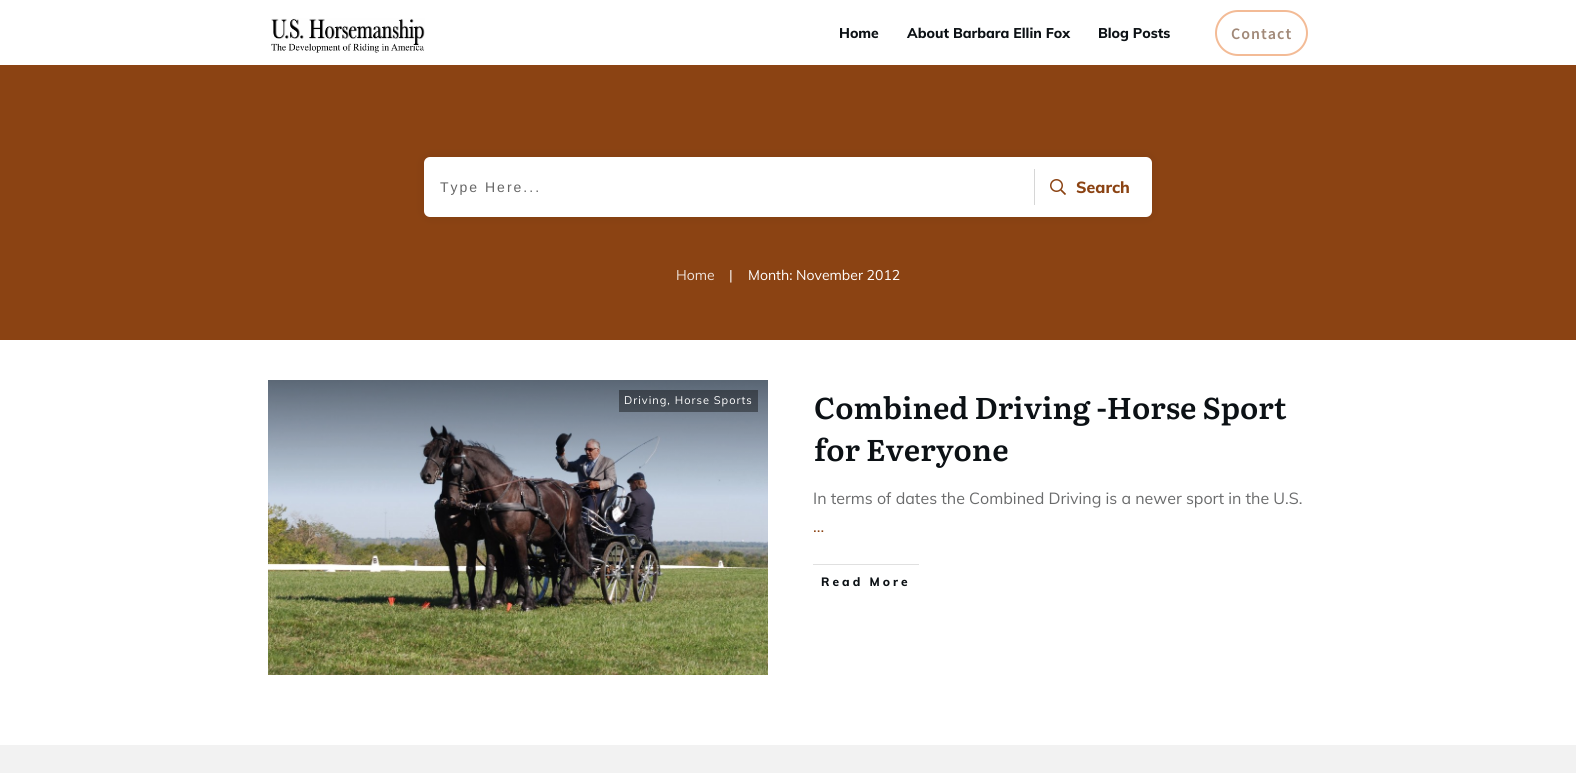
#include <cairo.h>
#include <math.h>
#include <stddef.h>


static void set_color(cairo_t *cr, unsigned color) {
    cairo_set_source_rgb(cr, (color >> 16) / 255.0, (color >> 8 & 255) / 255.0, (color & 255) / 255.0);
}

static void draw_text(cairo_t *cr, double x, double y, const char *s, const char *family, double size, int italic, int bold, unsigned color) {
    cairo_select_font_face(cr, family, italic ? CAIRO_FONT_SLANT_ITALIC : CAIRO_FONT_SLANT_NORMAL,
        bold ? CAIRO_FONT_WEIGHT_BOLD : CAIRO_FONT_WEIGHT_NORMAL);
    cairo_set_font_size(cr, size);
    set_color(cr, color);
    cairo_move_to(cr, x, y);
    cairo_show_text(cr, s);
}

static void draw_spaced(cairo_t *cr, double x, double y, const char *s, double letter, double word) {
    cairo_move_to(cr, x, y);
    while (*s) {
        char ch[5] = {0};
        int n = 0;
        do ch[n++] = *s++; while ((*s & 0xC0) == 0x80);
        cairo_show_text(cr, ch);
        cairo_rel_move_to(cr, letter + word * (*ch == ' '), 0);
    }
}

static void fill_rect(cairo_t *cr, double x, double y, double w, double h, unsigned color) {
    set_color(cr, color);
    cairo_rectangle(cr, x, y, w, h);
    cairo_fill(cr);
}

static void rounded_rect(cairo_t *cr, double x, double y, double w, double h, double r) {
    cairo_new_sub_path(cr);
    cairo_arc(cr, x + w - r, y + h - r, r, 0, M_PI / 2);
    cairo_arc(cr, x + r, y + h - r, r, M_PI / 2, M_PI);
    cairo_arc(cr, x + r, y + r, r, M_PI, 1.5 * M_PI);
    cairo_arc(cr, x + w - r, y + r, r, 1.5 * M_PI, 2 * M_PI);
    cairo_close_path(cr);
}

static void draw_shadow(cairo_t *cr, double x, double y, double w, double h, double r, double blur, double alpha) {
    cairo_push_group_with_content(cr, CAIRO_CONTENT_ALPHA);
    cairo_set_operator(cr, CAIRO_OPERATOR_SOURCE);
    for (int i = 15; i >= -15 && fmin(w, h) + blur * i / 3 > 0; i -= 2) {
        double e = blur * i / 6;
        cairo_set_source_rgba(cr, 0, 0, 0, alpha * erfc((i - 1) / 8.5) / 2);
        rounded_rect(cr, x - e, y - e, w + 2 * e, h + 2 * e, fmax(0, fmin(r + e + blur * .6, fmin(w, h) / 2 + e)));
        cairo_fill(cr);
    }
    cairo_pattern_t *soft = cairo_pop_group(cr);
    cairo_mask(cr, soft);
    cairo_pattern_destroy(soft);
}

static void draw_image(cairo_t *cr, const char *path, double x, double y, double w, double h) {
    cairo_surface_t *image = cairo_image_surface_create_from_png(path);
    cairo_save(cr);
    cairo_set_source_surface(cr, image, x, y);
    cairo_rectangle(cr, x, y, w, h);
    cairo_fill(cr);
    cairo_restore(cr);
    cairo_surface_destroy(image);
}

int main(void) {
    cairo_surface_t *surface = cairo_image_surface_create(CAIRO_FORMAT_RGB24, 1576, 773);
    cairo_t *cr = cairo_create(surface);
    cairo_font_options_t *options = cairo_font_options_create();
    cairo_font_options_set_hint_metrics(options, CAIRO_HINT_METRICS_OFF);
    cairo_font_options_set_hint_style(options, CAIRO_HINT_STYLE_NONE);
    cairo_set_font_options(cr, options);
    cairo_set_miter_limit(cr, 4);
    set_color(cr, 0xFFFFFF);
    cairo_paint(cr);
    draw_image(cr, "assets/img1.png", 271, 18, 154, 35);
    draw_text(cr, 839, 38, "Home", "Muli ExtraBold", 14, 0, 0, 0x0C1115);
    draw_text(cr, 907, 38, "About Barbara Ellin Fox", "Muli ExtraBold", 14, 0, 0, 0x0C1115);
    draw_text(cr, 1098, 38, "Blog Posts", "Muli ExtraBold", 14, 0, 0, 0x0C1115);
    rounded_rect(cr, 1216, 11, 91, 44, 22);
    set_color(cr, 0xF3BB96);
    cairo_stroke(cr);
    cairo_select_font_face(cr, "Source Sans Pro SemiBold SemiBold", CAIRO_FONT_SLANT_NORMAL, CAIRO_FONT_WEIGHT_NORMAL);
    cairo_set_font_size(cr, 16);
    set_color(cr, 0xA18978);
    draw_spaced(cr, 1231, 39, "Contact", 1, 0);
    fill_rect(cr, 0, 65, 1576, 275, 0x8B4313);
    set_color(cr, 0x000000);
    draw_shadow(cr, 424, 157, 728, 60, 6, 5.5, 0.08);
    set_color(cr, 0xFFFFFF);
    rounded_rect(cr, 424, 157, 728, 60, 6);
    cairo_fill(cr);
    cairo_select_font_face(cr, "Liberation Sans", CAIRO_FONT_SLANT_NORMAL, CAIRO_FONT_WEIGHT_NORMAL);
    cairo_set_font_size(cr, 14);
    set_color(cr, 0x666666);
    draw_spaced(cr, 440, 192, "Type Here...", 2, 0);
    fill_rect(cr, 1034, 169, 1, 36, 0xD6D6D6);
    draw_image(cr, "assets/img2.png", 1050, 179, 16, 16);
    draw_text(cr, 1076, 193, "Search", "Muli ExtraBold", 16, 0, 0, 0x8B4313);
    draw_text(cr, 676, 280, "Home", "Muli", 14, 0, 0, 0xEEE3DC);
    draw_text(cr, 729, 280, "|", "Muli", 14, 0, 0, 0xFFFFFF);
    draw_text(cr, 748, 280, "Month: November 2012", "Muli", 14, 0, 0, 0xFFFFFF);
    draw_image(cr, "assets/img3.png", 268, 380, 500, 295);
    cairo_set_source_rgba(cr, 0, 0, 0, 0.4);
    cairo_rectangle(cr, 619, 390, 139, 22);
    cairo_fill(cr);
    cairo_set_font_size(cr, 11);
    set_color(cr, 0xFFFFFF);
    draw_spaced(cr, 624, 404, "Driving, Horse Sports", 1, 0);
    draw_text(cr, 814, 419, "Combined Driving -Horse Sport", "Literata SemiBold", 30, 0, 0, 0x0C1115);
    draw_text(cr, 814, 461, "for Everyone", "Literata SemiBold", 30, 0, 0, 0x0C1115);
    draw_text(cr, 813, 504, "In terms of dates the Combined Driving is a newer sport in the U.S.", "Muli", 16, 0, 0, 0x6A6B6C);
    draw_text(cr, 813, 532, "...", "Muli", 16, 0, 0, 0x8B4313);
    fill_rect(cr, 813, 564, 106, 1, 0xE0E0E0);
    cairo_select_font_face(cr, "Muli ExtraBold", CAIRO_FONT_SLANT_NORMAL, CAIRO_FONT_WEIGHT_NORMAL);
    cairo_set_font_size(cr, 12);
    set_color(cr, 0x0C1115);
    draw_spaced(cr, 821, 586, "Read More", 3, 0);
    fill_rect(cr, 0, 745, 1576, 28, 0xF2F2F2);
    cairo_surface_write_to_png(surface, "output.png");
    cairo_font_options_destroy(options);
    cairo_destroy(cr);
    cairo_surface_destroy(surface);
    return 0;
}
